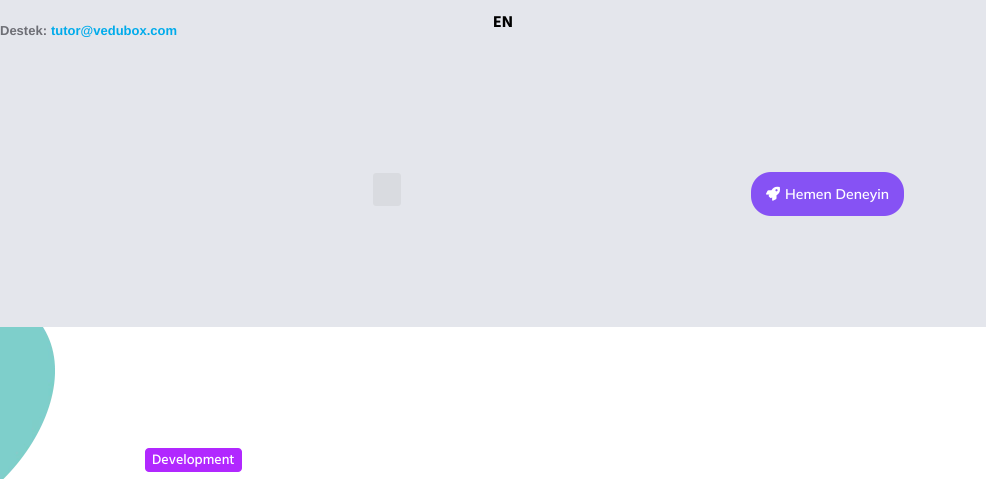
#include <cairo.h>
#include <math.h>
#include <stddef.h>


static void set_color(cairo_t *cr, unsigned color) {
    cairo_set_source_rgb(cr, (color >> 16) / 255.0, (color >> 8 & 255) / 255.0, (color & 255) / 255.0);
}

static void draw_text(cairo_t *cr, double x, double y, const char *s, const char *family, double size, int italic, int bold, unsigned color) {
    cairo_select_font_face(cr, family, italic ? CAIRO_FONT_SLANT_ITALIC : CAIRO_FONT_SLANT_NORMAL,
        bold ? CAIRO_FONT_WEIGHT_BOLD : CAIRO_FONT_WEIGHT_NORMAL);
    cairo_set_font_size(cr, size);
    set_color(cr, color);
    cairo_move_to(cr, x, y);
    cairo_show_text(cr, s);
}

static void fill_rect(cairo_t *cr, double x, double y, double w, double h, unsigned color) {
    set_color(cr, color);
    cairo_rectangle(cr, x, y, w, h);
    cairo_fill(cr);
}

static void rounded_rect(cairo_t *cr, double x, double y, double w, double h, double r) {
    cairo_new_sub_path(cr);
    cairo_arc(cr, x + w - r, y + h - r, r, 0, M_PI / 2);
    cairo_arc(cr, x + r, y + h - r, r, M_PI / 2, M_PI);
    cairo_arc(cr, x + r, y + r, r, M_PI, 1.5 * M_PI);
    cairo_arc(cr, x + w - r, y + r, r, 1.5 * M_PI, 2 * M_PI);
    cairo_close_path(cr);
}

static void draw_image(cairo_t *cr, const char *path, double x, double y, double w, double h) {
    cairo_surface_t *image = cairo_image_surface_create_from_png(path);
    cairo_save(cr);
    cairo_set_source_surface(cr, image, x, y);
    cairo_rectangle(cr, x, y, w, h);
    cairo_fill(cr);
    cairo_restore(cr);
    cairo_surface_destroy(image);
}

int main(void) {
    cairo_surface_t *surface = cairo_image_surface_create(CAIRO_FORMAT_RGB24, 986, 479);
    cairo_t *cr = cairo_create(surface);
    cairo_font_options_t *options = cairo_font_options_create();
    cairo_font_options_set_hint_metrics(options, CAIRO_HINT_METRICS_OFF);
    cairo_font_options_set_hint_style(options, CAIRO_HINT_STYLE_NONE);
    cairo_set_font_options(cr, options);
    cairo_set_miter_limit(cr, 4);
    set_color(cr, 0xFFFFFF);
    cairo_paint(cr);
    fill_rect(cr, 0, 0, 986, 327, 0xE4E6EC);
    draw_text(cr, 493, 27, "EN", "Hind", 16, 0, 1, 0x000000);
    draw_text(cr, 0, 35, "Destek:", "Liberation Sans", 13, 0, 1, 0x6D6E75);
    draw_text(cr, 51, 35, "tutor@vedubox.com", "Liberation Sans", 13, 0, 1, 0x00ABEB);
    set_color(cr, 0xD9DBE0);
    rounded_rect(cr, 373, 173, 28, 33, 3);
    cairo_fill(cr);
    set_color(cr, 0x8652F4);
    rounded_rect(cr, 751, 172, 153, 44, 20);
    cairo_fill(cr);
    draw_image(cr, "assets/img1.png", 766, 186, 14, 15);
    draw_text(cr, 785, 199, "Hemen Deneyin", "Mulish SemiBold", 14, 0, 0, 0xFFFFFF);
    draw_image(cr, "assets/img2.png", 0, 327, 55, 152);
    set_color(cr, 0xB128FF);
    rounded_rect(cr, 145, 448, 97, 24, 4);
    cairo_fill(cr);
    draw_text(cr, 152, 464, "Development", "Hind Medium", 14, 0, 0, 0xFFFFFF);
    cairo_surface_write_to_png(surface, "output.png");
    cairo_font_options_destroy(options);
    cairo_destroy(cr);
    cairo_surface_destroy(surface);
    return 0;
}
